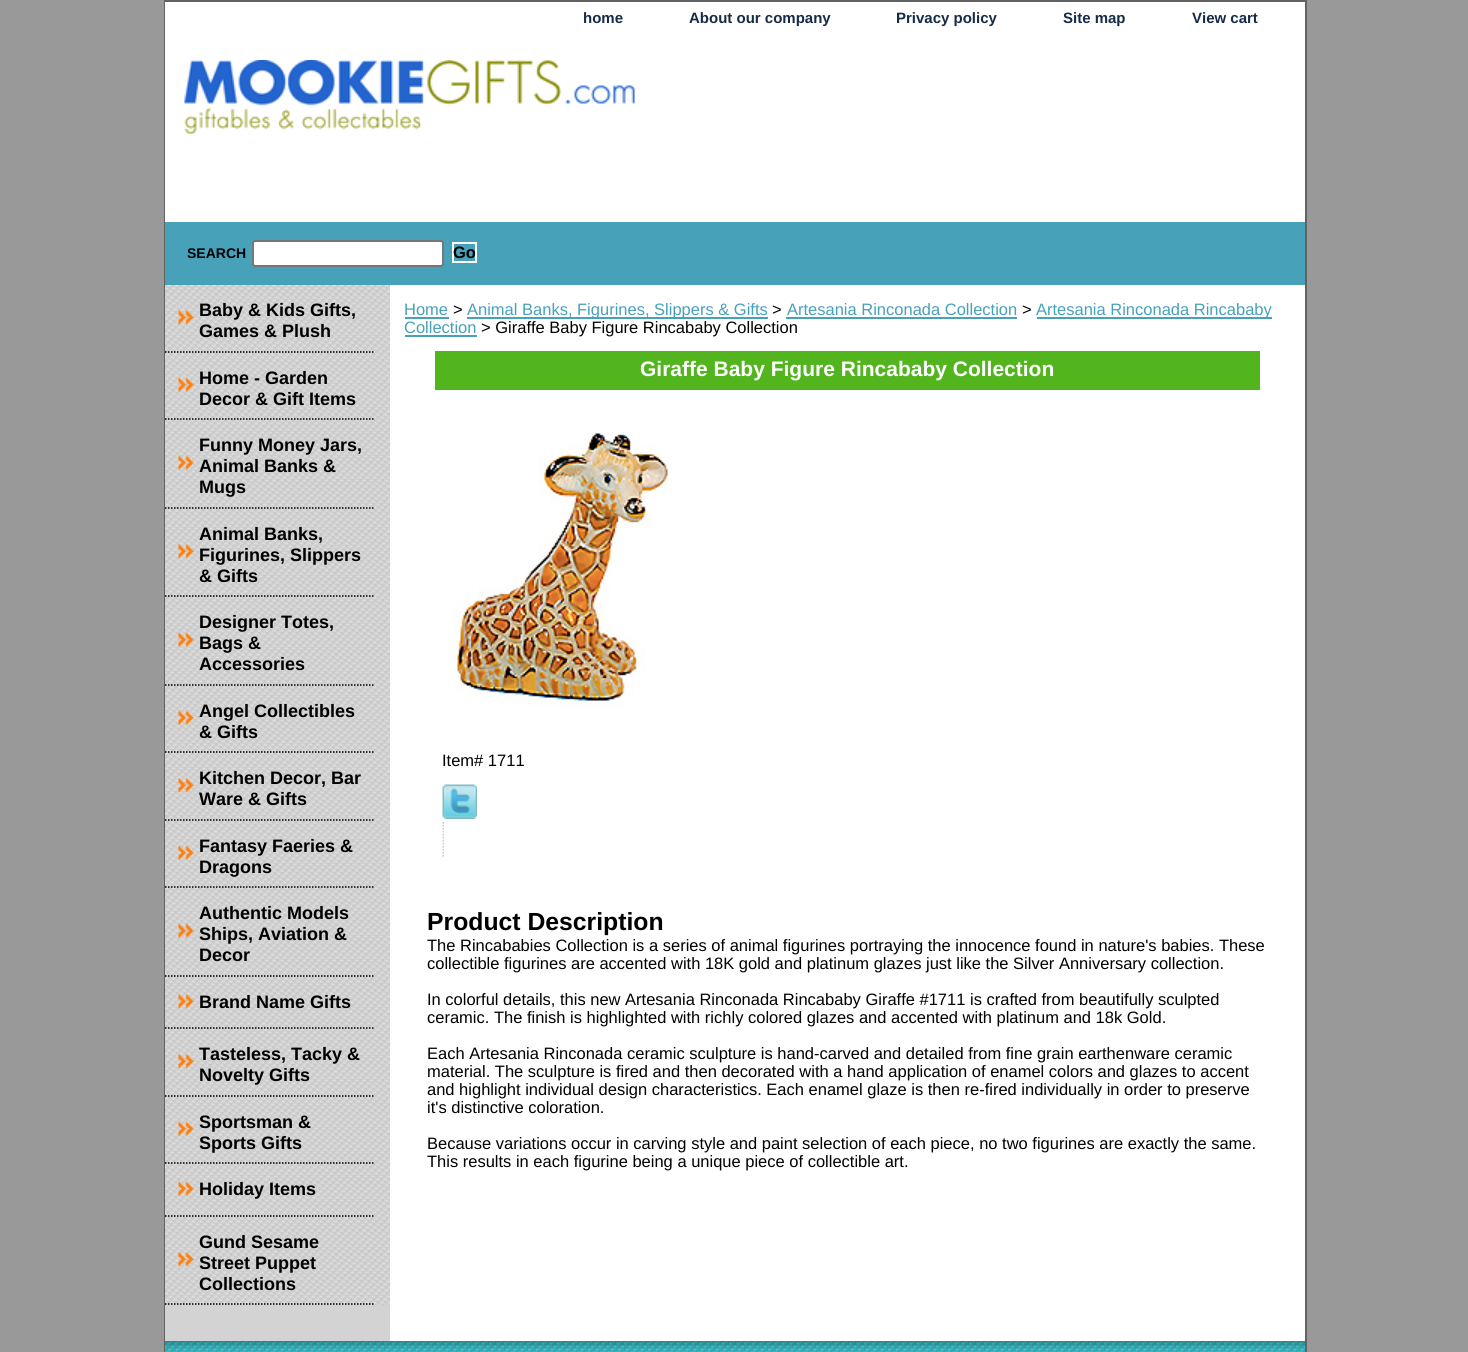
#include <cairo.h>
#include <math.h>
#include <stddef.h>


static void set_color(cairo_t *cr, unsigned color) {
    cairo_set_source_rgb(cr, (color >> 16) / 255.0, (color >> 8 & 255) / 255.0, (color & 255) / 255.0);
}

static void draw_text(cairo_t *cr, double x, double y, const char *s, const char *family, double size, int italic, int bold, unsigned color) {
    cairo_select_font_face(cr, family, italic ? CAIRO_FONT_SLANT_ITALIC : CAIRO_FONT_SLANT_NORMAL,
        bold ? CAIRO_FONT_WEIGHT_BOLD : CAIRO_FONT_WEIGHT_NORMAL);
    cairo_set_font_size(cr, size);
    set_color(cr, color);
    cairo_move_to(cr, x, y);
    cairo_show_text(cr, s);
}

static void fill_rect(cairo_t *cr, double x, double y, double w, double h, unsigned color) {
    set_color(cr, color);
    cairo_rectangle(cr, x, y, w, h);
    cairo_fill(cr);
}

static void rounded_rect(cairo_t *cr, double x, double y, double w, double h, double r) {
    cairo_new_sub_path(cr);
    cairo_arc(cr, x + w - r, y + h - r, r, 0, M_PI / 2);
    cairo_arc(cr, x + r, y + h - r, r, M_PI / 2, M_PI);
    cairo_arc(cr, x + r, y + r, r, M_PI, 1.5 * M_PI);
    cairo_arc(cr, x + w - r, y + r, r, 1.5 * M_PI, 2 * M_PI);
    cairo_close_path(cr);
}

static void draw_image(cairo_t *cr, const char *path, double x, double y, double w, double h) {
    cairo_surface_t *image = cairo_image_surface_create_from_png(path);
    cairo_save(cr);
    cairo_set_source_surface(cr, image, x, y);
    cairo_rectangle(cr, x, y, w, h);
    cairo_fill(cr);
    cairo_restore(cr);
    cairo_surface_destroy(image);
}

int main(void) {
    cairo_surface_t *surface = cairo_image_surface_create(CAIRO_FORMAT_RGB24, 1468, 1352);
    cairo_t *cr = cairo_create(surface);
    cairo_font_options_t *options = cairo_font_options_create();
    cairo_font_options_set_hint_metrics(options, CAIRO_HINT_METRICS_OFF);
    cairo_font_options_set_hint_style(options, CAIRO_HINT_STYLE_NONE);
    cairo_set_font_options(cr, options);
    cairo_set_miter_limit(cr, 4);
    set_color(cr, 0x999999);
    cairo_paint(cr);
    cairo_rectangle(cr, 165, 1, 1141, 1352);
    set_color(cr, 0x626262);
    cairo_stroke(cr);
    fill_rect(cr, 165, 2, 1140, 220, 0xFFFFFF);
    draw_text(cr, 583, 23, "home", "Liberation Sans", 15, 0, 1, 0x162B47);
    draw_text(cr, 689, 23, "About our company", "Liberation Sans", 15, 0, 1, 0x162B47);
    draw_text(cr, 896, 23, "Privacy policy", "Liberation Sans", 15, 0, 1, 0x162B47);
    draw_text(cr, 1063, 23, "Site map", "Liberation Sans", 15, 0, 1, 0x162B47);
    draw_text(cr, 1192, 23, "View cart", "Liberation Sans", 15, 0, 1, 0x162B47);
    draw_image(cr, "assets/img1.png", 184, 60, 451, 74);
    fill_rect(cr, 165, 222, 1140, 63, 0x47A1B8);
    draw_text(cr, 187, 258, "SEARCH", "Liberation Sans", 14, 0, 1, 0x000000);
    set_color(cr, 0xFFFFFF);
    rounded_rect(cr, 253, 241, 190, 25, 2);
    cairo_fill_preserve(cr);
    set_color(cr, 0x767676);
    cairo_stroke(cr);
    cairo_rectangle(cr, 453, 243, 23, 19);
    set_color(cr, 0xFFFFFF);
    cairo_stroke(cr);
    draw_text(cr, 453, 258, "Go", "Liberation Sans", 16.5, 0, 1, 0x000000);
    fill_rect(cr, 390, 285, 915, 1056, 0xFFFFFF);
    fill_rect(cr, 165, 1305, 225, 36, 0xD3D3D3);
    draw_image(cr, "assets/img2.png", 165, 285, 225, 1020);
    draw_image(cr, "assets/img3.png", 178, 310, 16, 15);
    cairo_new_path(cr);
    cairo_move_to(cr, 165, 352);
    cairo_line_to(cr, 375, 352);
    set_color(cr, 0x000000);
    cairo_set_line_width(cr, 1.5);
    cairo_set_dash(cr, (double[]){1.5, 1.5}, 2, 0);
    cairo_stroke(cr);
    draw_text(cr, 199, 316, "Baby & Kids Gifts,", "Liberation Sans", 18, 0, 1, 0x000000);
    draw_text(cr, 199, 337, "Games & Plush", "Liberation Sans", 18, 0, 1, 0x000000);
    draw_image(cr, "assets/img4.png", 178, 377, 16, 15);
    cairo_new_path(cr);
    cairo_move_to(cr, 165, 419);
    cairo_line_to(cr, 375, 419);
    cairo_stroke(cr);
    draw_text(cr, 199, 384, "Home - Garden", "Liberation Sans", 18, 0, 1, 0x000000);
    draw_text(cr, 199, 405, "Decor & Gift Items", "Liberation Sans", 18, 0, 1, 0x000000);
    draw_image(cr, "assets/img5.png", 178, 455, 16, 15);
    cairo_new_path(cr);
    cairo_move_to(cr, 165, 508);
    cairo_line_to(cr, 375, 508);
    cairo_stroke(cr);
    draw_text(cr, 199, 451, "Funny Money Jars,", "Liberation Sans", 18, 0, 1, 0x000000);
    draw_text(cr, 199, 472, "Animal Banks &", "Liberation Sans", 18, 0, 1, 0x000000);
    draw_text(cr, 199, 493, "Mugs", "Liberation Sans", 18, 0, 1, 0x000000);
    draw_image(cr, "assets/img6.png", 178, 544, 16, 15);
    cairo_new_path(cr);
    cairo_move_to(cr, 165, 596);
    cairo_line_to(cr, 375, 596);
    cairo_stroke(cr);
    draw_text(cr, 199, 540, "Animal Banks,", "Liberation Sans", 18, 0, 1, 0x000000);
    draw_text(cr, 199, 561, "Figurines, Slippers", "Liberation Sans", 18, 0, 1, 0x000000);
    draw_text(cr, 199, 582, "& Gifts", "Liberation Sans", 18, 0, 1, 0x000000);
    draw_image(cr, "assets/img4.png", 178, 632, 16, 15);
    cairo_new_path(cr);
    cairo_move_to(cr, 165, 685);
    cairo_line_to(cr, 375, 685);
    cairo_stroke(cr);
    draw_text(cr, 199, 628, "Designer Totes,", "Liberation Sans", 18, 0, 1, 0x000000);
    draw_text(cr, 199, 649, "Bags &", "Liberation Sans", 18, 0, 1, 0x000000);
    draw_text(cr, 199, 670, "Accessories", "Liberation Sans", 18, 0, 1, 0x000000);
    draw_image(cr, "assets/img5.png", 178, 710, 16, 15);
    cairo_new_path(cr);
    cairo_move_to(cr, 165, 752);
    cairo_line_to(cr, 375, 752);
    cairo_stroke(cr);
    draw_text(cr, 199, 717, "Angel Collectibles", "Liberation Sans", 18, 0, 1, 0x000000);
    draw_text(cr, 199, 738, "& Gifts", "Liberation Sans", 18, 0, 1, 0x000000);
    draw_image(cr, "assets/img7.png", 178, 778, 16, 15);
    cairo_new_path(cr);
    cairo_move_to(cr, 165, 820);
    cairo_line_to(cr, 375, 820);
    cairo_stroke(cr);
    draw_text(cr, 199, 784, "Kitchen Decor, Bar", "Liberation Sans", 18, 0, 1, 0x000000);
    draw_text(cr, 199, 805, "Ware & Gifts", "Liberation Sans", 18, 0, 1, 0x000000);
    draw_image(cr, "assets/img5.png", 178, 845, 16, 15);
    cairo_new_path(cr);
    cairo_move_to(cr, 165, 887);
    cairo_line_to(cr, 375, 887);
    cairo_stroke(cr);
    draw_text(cr, 199, 852, "Fantasy Faeries &", "Liberation Sans", 18, 0, 1, 0x000000);
    draw_text(cr, 199, 873, "Dragons", "Liberation Sans", 18, 0, 1, 0x000000);
    draw_image(cr, "assets/img8.png", 178, 923, 16, 15);
    cairo_new_path(cr);
    cairo_move_to(cr, 165, 976);
    cairo_line_to(cr, 375, 976);
    cairo_stroke(cr);
    draw_text(cr, 199, 919, "Authentic Models", "Liberation Sans", 18, 0, 1, 0x000000);
    draw_text(cr, 199, 940, "Ships, Aviation &", "Liberation Sans", 18, 0, 1, 0x000000);
    draw_text(cr, 199, 961, "Decor", "Liberation Sans", 18, 0, 1, 0x000000);
    draw_image(cr, "assets/img6.png", 178, 994, 16, 15);
    cairo_new_path(cr);
    cairo_move_to(cr, 165, 1028);
    cairo_line_to(cr, 375, 1028);
    cairo_stroke(cr);
    draw_text(cr, 199, 1008, "Brand Name Gifts", "Liberation Sans", 18, 0, 1, 0x000000);
    draw_image(cr, "assets/img6.png", 178, 1054, 16, 15);
    cairo_new_path(cr);
    cairo_move_to(cr, 165, 1096);
    cairo_line_to(cr, 375, 1096);
    cairo_stroke(cr);
    draw_text(cr, 199, 1060, "Tasteless, Tacky &", "Liberation Sans", 18, 0, 1, 0x000000);
    draw_text(cr, 199, 1081, "Novelty Gifts", "Liberation Sans", 18, 0, 1, 0x000000);
    draw_image(cr, "assets/img9.png", 178, 1121, 16, 15);
    cairo_new_path(cr);
    cairo_move_to(cr, 165, 1163);
    cairo_line_to(cr, 375, 1163);
    cairo_stroke(cr);
    draw_text(cr, 199, 1128, "Sportsman &", "Liberation Sans", 18, 0, 1, 0x000000);
    draw_text(cr, 199, 1149, "Sports Gifts", "Liberation Sans", 18, 0, 1, 0x000000);
    draw_image(cr, "assets/img9.png", 178, 1181, 16, 15);
    cairo_new_path(cr);
    cairo_move_to(cr, 165, 1216);
    cairo_line_to(cr, 375, 1216);
    cairo_stroke(cr);
    draw_text(cr, 199, 1195, "Holiday Items", "Liberation Sans", 18, 0, 1, 0x000000);
    draw_image(cr, "assets/img10.png", 178, 1252, 16, 15);
    cairo_new_path(cr);
    cairo_move_to(cr, 165, 1304);
    cairo_line_to(cr, 375, 1304);
    cairo_stroke(cr);
    draw_text(cr, 199, 1248, "Gund Sesame", "Liberation Sans", 18, 0, 1, 0x000000);
    draw_text(cr, 199, 1269, "Street Puppet", "Liberation Sans", 18, 0, 1, 0x000000);
    draw_text(cr, 199, 1290, "Collections", "Liberation Sans", 18, 0, 1, 0x000000);
    draw_text(cr, 404, 315, "Home", "Liberation Sans", 16.5, 0, 0, 0x47A1B8);
    fill_rect(cr, 405, 317, 44, 2, 0x47A1B8);
    draw_text(cr, 453, 315, ">", "Liberation Sans", 16.5, 0, 0, 0x000000);
    fill_rect(cr, 467, 317, 301, 2, 0x47A1B8);
    draw_text(cr, 467, 315, "Animal Banks, Figurines, Slippers & Gifts", "Liberation Sans", 16.5, 0, 0, 0x47A1B8);
    draw_text(cr, 772, 315, ">", "Liberation Sans", 16.5, 0, 0, 0x000000);
    draw_text(cr, 787, 315, "Artesania Rinconada Collection", "Liberation Sans", 16.5, 0, 0, 0x47A1B8);
    fill_rect(cr, 786, 317, 231, 2, 0x47A1B8);
    draw_text(cr, 1022, 315, ">", "Liberation Sans", 16.5, 0, 0, 0x000000);
    fill_rect(cr, 1037, 317, 235, 2, 0x47A1B8);
    draw_text(cr, 1036, 315, "Artesania Rinconada Rincababy", "Liberation Sans", 16.5, 0, 0, 0x47A1B8);
    draw_text(cr, 404, 333, "Collection", "Liberation Sans", 16.5, 0, 0, 0x47A1B8);
    fill_rect(cr, 405, 335, 72, 2, 0x47A1B8);
    draw_text(cr, 481, 333, "> Giraffe Baby Figure Rincababy Collection", "Liberation Sans", 16.5, 0, 0, 0x000000);
    fill_rect(cr, 435, 351, 825, 39, 0x52B51E);
    draw_text(cr, 640, 376, "Giraffe Baby Figure Rincababy Collection", "Liberation Sans", 21, 0, 1, 0xFFFFFF);
    draw_image(cr, "assets/img11.png", 454, 432, 217, 276);
    draw_text(cr, 442, 766, "Item# 1711", "Liberation Sans", 16.5, 0, 0, 0x000000);
    draw_image(cr, "assets/img12.png", 442, 784, 35, 35);
    draw_image(cr, "assets/img13.png", 442, 822, 2, 35);
    draw_text(cr, 427, 930, "Product Description", "Liberation Sans", 24.75, 0, 1, 0x000000);
    draw_text(cr, 427, 951, "The Rincababies Collection is a series of animal figurines portraying the innocence found in nature's babies. These", "Liberation Sans", 16.5, 0, 0, 0x000000);
    draw_text(cr, 427, 969, "collectible figurines are accented with 18K gold and platinum glazes just like the Silver Anniversary collection.", "Liberation Sans", 16.5, 0, 0, 0x000000);
    draw_text(cr, 427, 1005, "In colorful details, this new Artesania Rinconada Rincababy Giraffe #1711 is crafted from beautifully sculpted", "Liberation Sans", 16.5, 0, 0, 0x000000);
    draw_text(cr, 427, 1023, "ceramic. The finish is highlighted with richly colored glazes and accented with platinum and 18k Gold.", "Liberation Sans", 16.5, 0, 0, 0x000000);
    draw_text(cr, 427, 1059, "Each Artesania Rinconada ceramic sculpture is hand-carved and detailed from fine grain earthenware ceramic", "Liberation Sans", 16.5, 0, 0, 0x000000);
    draw_text(cr, 427, 1077, "material. The sculpture is fired and then decorated with a hand application of enamel colors and glazes to accent", "Liberation Sans", 16.5, 0, 0, 0x000000);
    draw_text(cr, 427, 1095, "and highlight individual design characteristics. Each enamel glaze is then re-fired individually in order to preserve", "Liberation Sans", 16.5, 0, 0, 0x000000);
    draw_text(cr, 427, 1113, "it's distinctive coloration.", "Liberation Sans", 16.5, 0, 0, 0x000000);
    draw_text(cr, 427, 1149, "Because variations occur in carving style and paint selection of each piece, no two figurines are exactly the same.", "Liberation Sans", 16.5, 0, 0, 0x000000);
    draw_text(cr, 427, 1167, "This results in each figurine being a unique piece of collectible art.", "Liberation Sans", 16.5, 0, 0, 0x000000);
    draw_image(cr, "assets/img14.png", 165, 1341, 1140, 11);
    cairo_surface_write_to_png(surface, "output.png");
    cairo_font_options_destroy(options);
    cairo_destroy(cr);
    cairo_surface_destroy(surface);
    return 0;
}
